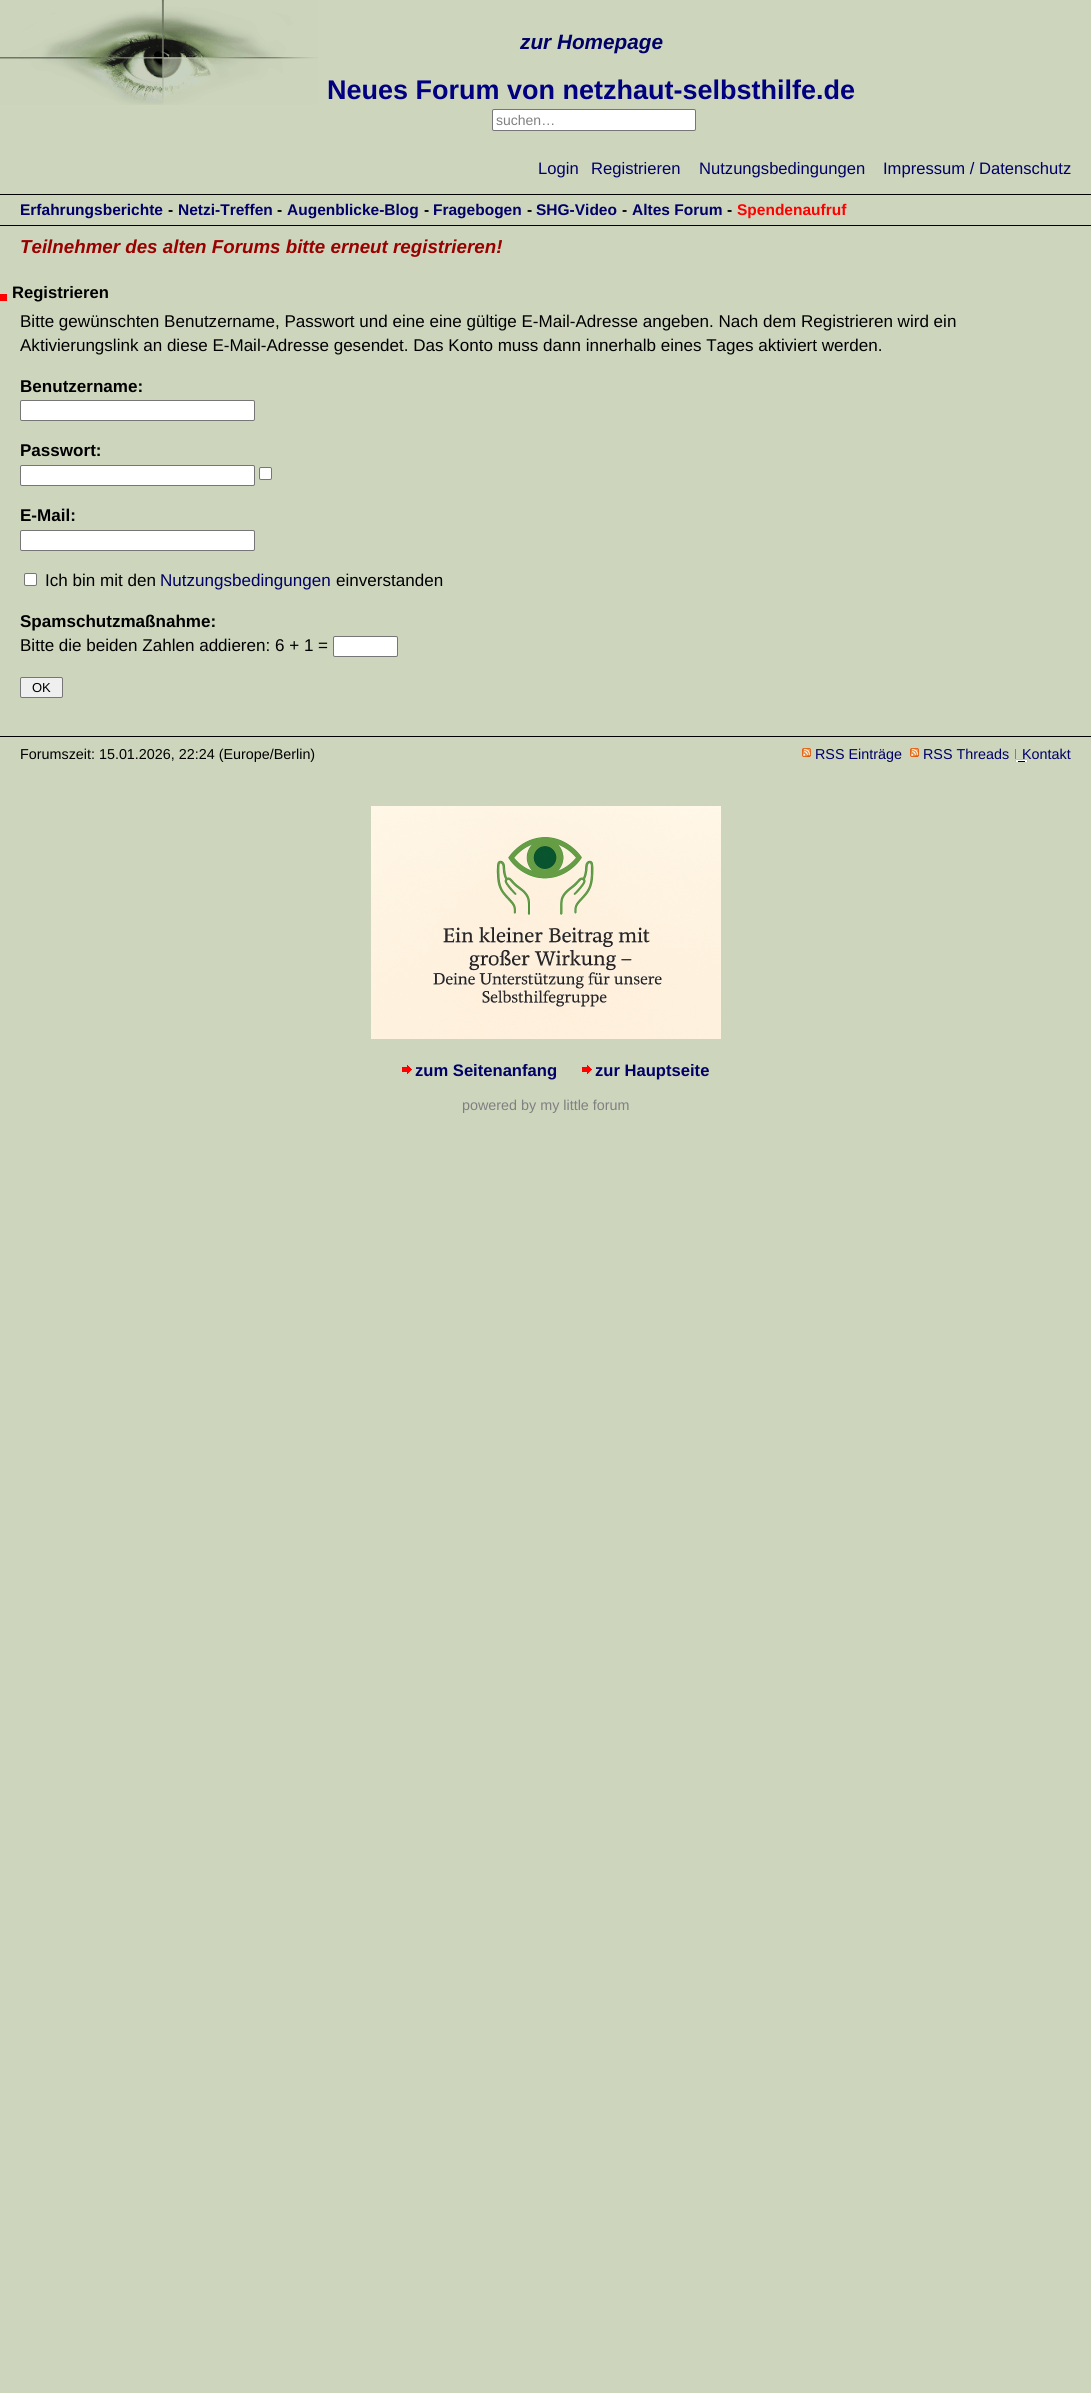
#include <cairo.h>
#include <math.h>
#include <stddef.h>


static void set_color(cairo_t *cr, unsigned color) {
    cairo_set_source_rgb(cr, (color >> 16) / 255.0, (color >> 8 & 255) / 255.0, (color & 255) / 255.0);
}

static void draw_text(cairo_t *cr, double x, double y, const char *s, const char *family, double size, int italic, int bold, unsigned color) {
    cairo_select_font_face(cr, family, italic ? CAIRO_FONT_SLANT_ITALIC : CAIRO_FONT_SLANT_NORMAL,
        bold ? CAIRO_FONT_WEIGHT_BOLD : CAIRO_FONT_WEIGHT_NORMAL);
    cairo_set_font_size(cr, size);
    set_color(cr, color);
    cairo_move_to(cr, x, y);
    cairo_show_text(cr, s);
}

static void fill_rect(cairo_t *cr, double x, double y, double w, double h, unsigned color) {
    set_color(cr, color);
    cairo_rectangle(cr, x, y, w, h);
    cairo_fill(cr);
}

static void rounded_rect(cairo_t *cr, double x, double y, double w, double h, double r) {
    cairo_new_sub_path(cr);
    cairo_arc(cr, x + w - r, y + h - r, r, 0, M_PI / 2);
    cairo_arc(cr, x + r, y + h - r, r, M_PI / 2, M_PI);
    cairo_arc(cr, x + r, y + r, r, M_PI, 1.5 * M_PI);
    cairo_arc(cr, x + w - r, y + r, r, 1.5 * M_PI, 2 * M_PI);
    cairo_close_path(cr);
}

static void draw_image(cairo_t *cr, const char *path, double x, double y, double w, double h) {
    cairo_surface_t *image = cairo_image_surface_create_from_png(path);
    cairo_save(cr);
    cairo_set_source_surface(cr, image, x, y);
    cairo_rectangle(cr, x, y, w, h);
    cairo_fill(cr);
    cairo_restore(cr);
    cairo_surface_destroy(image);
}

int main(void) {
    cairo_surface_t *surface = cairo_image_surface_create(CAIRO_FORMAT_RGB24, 1091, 2393);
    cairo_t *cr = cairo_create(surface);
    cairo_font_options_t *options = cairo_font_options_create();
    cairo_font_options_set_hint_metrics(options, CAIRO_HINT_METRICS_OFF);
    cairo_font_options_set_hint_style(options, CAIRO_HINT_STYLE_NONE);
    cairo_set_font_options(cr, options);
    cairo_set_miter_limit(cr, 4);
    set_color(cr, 0xCDD5BD);
    cairo_paint(cr);
    draw_image(cr, "assets/img1.png", 0, 0, 318, 105);
    draw_text(cr, 520, 49, "zur Homepage", "Liberation Sans", 20.75, 1, 1, 0x000066);
    draw_text(cr, 327, 99, "Neues Forum von netzhaut-selbsthilfe.de", "Liberation Sans", 27, 0, 1, 0x000080);
    set_color(cr, 0xFFFFFF);
    rounded_rect(cr, 492.5, 109.5, 203, 21, 1.5);
    cairo_fill_preserve(cr);
    set_color(cr, 0x767676);
    cairo_set_line_width(cr, 1);
    cairo_stroke(cr);
    draw_text(cr, 496, 125, "suchen…", "Liberation Sans", 14, 0, 0, 0x808080);
    draw_text(cr, 538, 174, "Login", "Liberation Sans", 16.6, 0, 0, 0x000066);
    draw_text(cr, 591, 174, "Registrieren", "Liberation Sans", 16.6, 0, 0, 0x000066);
    draw_text(cr, 699, 174, "Nutzungsbedingungen", "Liberation Sans", 16.6, 0, 0, 0x000066);
    draw_text(cr, 883, 174, "Impressum / Datenschutz", "Liberation Sans", 16.6, 0, 0, 0x000066);
    fill_rect(cr, 0, 194, 1091, 1, 0x000000);
    fill_rect(cr, 0, 225, 1091, 1, 0x000000);
    draw_text(cr, 20, 215, "Erfahrungsberichte", "Liberation Sans", 15.5, 0, 1, 0x000066);
    draw_text(cr, 168, 215, "-", "Liberation Sans", 15.5, 0, 1, 0x000000);
    draw_text(cr, 178, 215, "Netzi-Treffen", "Liberation Sans", 15.5, 0, 1, 0x000066);
    draw_text(cr, 277, 215, "-", "Liberation Sans", 15.5, 0, 1, 0x000000);
    draw_text(cr, 287, 215, "Augenblicke-Blog", "Liberation Sans", 15.5, 0, 1, 0x000066);
    draw_text(cr, 424, 215, "-", "Liberation Sans", 15.5, 0, 1, 0x000000);
    draw_text(cr, 433, 215, "Fragebogen", "Liberation Sans", 15.5, 0, 1, 0x000066);
    draw_text(cr, 527, 215, "-", "Liberation Sans", 15.5, 0, 1, 0x000000);
    draw_text(cr, 536, 215, "SHG-Video", "Liberation Sans", 15.5, 0, 1, 0x000066);
    draw_text(cr, 622, 215, "-", "Liberation Sans", 15.5, 0, 1, 0x000000);
    draw_text(cr, 632, 215, "Altes Forum", "Liberation Sans", 15.5, 0, 1, 0x000066);
    draw_text(cr, 727, 215, "-", "Liberation Sans", 15.5, 0, 1, 0x000000);
    draw_text(cr, 737, 215, "Spendenaufruf", "Liberation Sans", 15.5, 0, 1, 0xFF0000);
    draw_text(cr, 20, 253, "Teilnehmer des alten Forums bitte erneut registrieren!", "Liberation Sans", 18.75, 1, 1, 0x990000);
    fill_rect(cr, 0, 294, 7, 7, 0xFF0000);
    draw_text(cr, 12, 298, "Registrieren", "Liberation Sans", 16.6, 0, 1, 0x000000);
    draw_text(cr, 20, 327, "Bitte gewünschten Benutzername, Passwort und eine eine gültige E-Mail-Adresse angeben. Nach dem Registrieren wird ein", "Liberation Sans", 17.05, 0, 0, 0x000000);
    draw_text(cr, 20, 351, "Aktivierungslink an diese E-Mail-Adresse gesendet. Das Konto muss dann innerhalb eines Tages aktiviert werden.", "Liberation Sans", 17.05, 0, 0, 0x000000);
    draw_text(cr, 20, 392, "Benutzername:", "Liberation Sans", 17.05, 0, 1, 0x000000);
    set_color(cr, 0xFFFFFF);
    rounded_rect(cr, 20.5, 400.5, 234, 20, 1.5);
    cairo_fill_preserve(cr);
    set_color(cr, 0x767676);
    cairo_stroke(cr);
    draw_text(cr, 20, 456, "Passwort:", "Liberation Sans", 17.05, 0, 1, 0x000000);
    set_color(cr, 0xFFFFFF);
    rounded_rect(cr, 20.5, 465.5, 234, 20, 1.5);
    cairo_fill_preserve(cr);
    set_color(cr, 0x767676);
    cairo_stroke(cr);
    set_color(cr, 0xFFFFFF);
    rounded_rect(cr, 259.5, 467.5, 12, 12, 1.5);
    cairo_fill_preserve(cr);
    set_color(cr, 0x767676);
    cairo_stroke(cr);
    draw_text(cr, 20, 521, "E-Mail:", "Liberation Sans", 17.05, 0, 1, 0x000000);
    set_color(cr, 0xFFFFFF);
    rounded_rect(cr, 20.5, 530.5, 234, 20, 1.5);
    cairo_fill_preserve(cr);
    set_color(cr, 0x767676);
    cairo_stroke(cr);
    set_color(cr, 0xFFFFFF);
    rounded_rect(cr, 24.5, 573.5, 12, 12, 1.5);
    cairo_fill_preserve(cr);
    set_color(cr, 0x767676);
    cairo_stroke(cr);
    draw_text(cr, 45, 586, "Ich bin mit den", "Liberation Sans", 17.05, 0, 0, 0x000000);
    draw_text(cr, 160, 586, "Nutzungsbedingungen", "Liberation Sans", 17.05, 0, 0, 0x000066);
    draw_text(cr, 336, 586, "einverstanden", "Liberation Sans", 17.05, 0, 0, 0x000000);
    draw_text(cr, 20, 627, "Spamschutzmaßnahme:", "Liberation Sans", 17.05, 0, 1, 0x000000);
    draw_text(cr, 20, 651, "Bitte die beiden Zahlen addieren: 6 + 1 =", "Liberation Sans", 17.05, 0, 0, 0x000000);
    set_color(cr, 0xFFFFFF);
    rounded_rect(cr, 333.5, 636.5, 64, 20, 1.5);
    cairo_fill_preserve(cr);
    set_color(cr, 0x767676);
    cairo_stroke(cr);
    set_color(cr, 0xEFEFEF);
    rounded_rect(cr, 20.5, 677.5, 42, 20, 1.5);
    cairo_fill_preserve(cr);
    set_color(cr, 0x767676);
    cairo_stroke(cr);
    draw_text(cr, 32, 692, "OK", "Liberation Sans", 13, 0, 0, 0x000000);
    fill_rect(cr, 0, 736, 1091, 1, 0x000000);
    draw_text(cr, 20, 759, "Forumszeit: 15.01.2026, 22:24 (Europe/Berlin)", "Liberation Sans", 14.35, 0, 0, 0x000000);
    draw_image(cr, "assets/img2.png", 802, 748, 9, 9);
    draw_text(cr, 815, 759, "RSS Einträge", "Liberation Sans", 14.35, 0, 0, 0x000066);
    draw_image(cr, "assets/img2.png", 910, 748, 9, 9);
    draw_text(cr, 923, 759, "RSS Threads", "Liberation Sans", 14.35, 0, 0, 0x000066);
    draw_image(cr, "assets/img3.png", 1015, 749, 13, 13);
    draw_text(cr, 1022, 759, "Kontakt", "Liberation Sans", 14.35, 0, 0, 0x000066);
    draw_image(cr, "assets/img4.png", 371, 806, 350, 233);
    draw_image(cr, "assets/img5.png", 402, 1065, 10, 9);
    draw_text(cr, 415, 1076, "zum Seitenanfang", "Liberation Sans", 16.6, 0, 1, 0x000066);
    draw_image(cr, "assets/img5.png", 582, 1065, 10, 9);
    draw_text(cr, 595, 1076, "zur Hauptseite", "Liberation Sans", 16.6, 0, 1, 0x000066);
    draw_text(cr, 462, 1110, "powered by my little forum", "Liberation Sans", 14.35, 0, 0, 0x808080);
    cairo_surface_write_to_png(surface, "output.png");
    cairo_font_options_destroy(options);
    cairo_destroy(cr);
    cairo_surface_destroy(surface);
    return 0;
}
